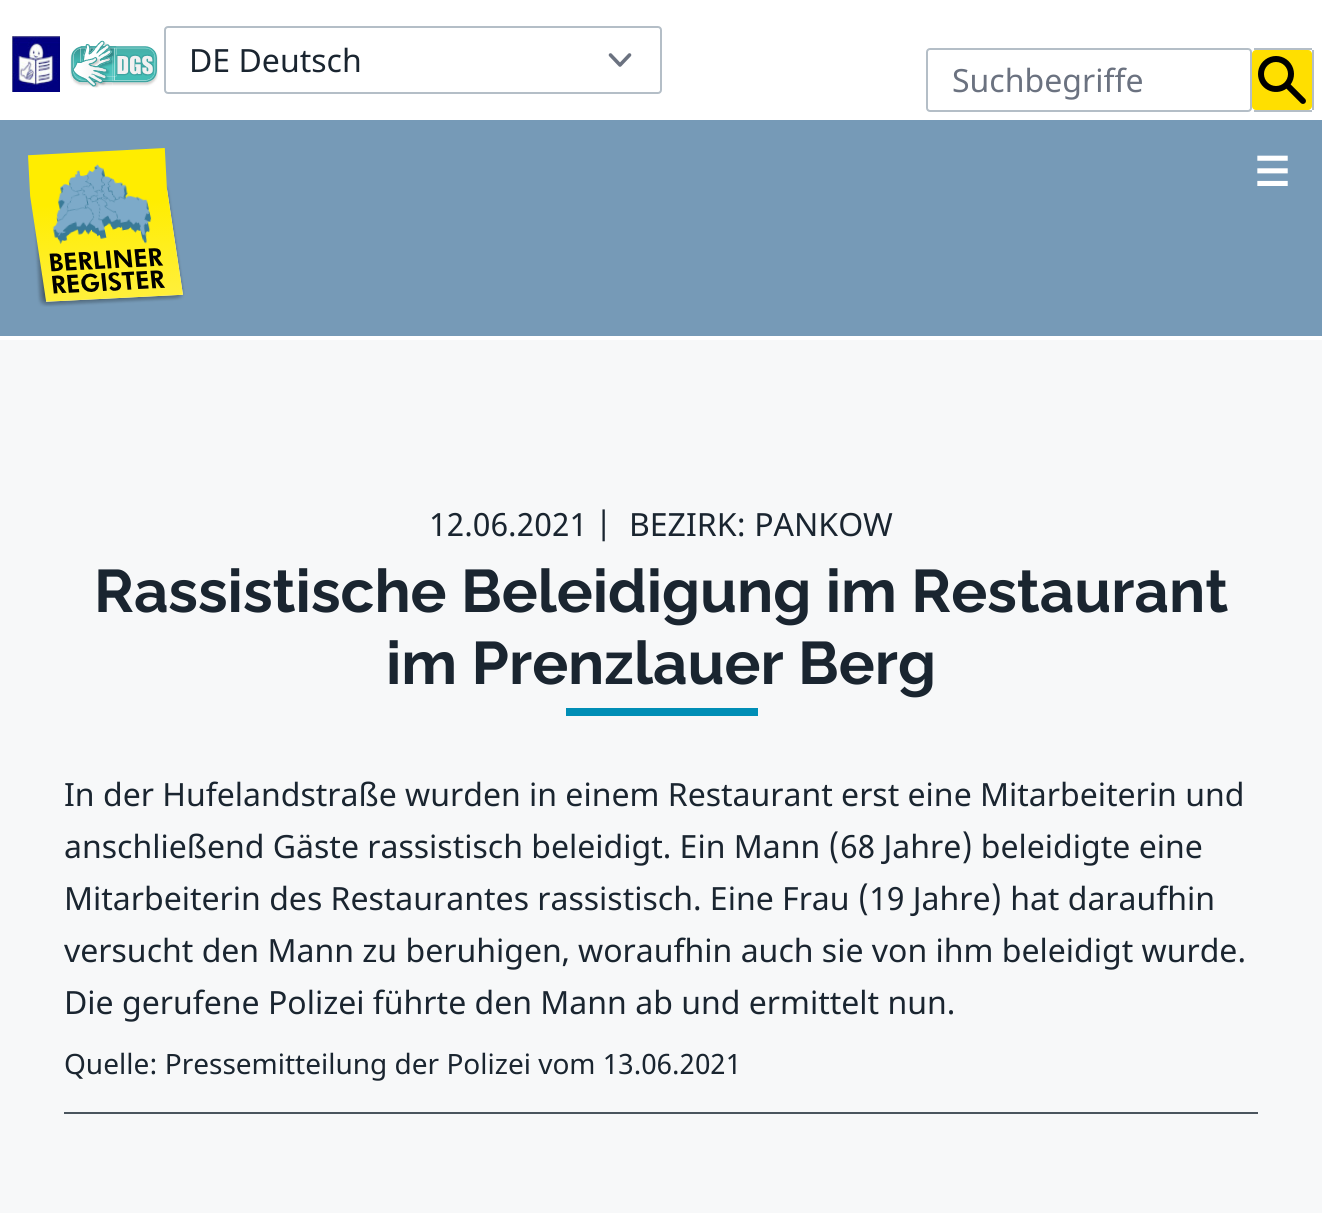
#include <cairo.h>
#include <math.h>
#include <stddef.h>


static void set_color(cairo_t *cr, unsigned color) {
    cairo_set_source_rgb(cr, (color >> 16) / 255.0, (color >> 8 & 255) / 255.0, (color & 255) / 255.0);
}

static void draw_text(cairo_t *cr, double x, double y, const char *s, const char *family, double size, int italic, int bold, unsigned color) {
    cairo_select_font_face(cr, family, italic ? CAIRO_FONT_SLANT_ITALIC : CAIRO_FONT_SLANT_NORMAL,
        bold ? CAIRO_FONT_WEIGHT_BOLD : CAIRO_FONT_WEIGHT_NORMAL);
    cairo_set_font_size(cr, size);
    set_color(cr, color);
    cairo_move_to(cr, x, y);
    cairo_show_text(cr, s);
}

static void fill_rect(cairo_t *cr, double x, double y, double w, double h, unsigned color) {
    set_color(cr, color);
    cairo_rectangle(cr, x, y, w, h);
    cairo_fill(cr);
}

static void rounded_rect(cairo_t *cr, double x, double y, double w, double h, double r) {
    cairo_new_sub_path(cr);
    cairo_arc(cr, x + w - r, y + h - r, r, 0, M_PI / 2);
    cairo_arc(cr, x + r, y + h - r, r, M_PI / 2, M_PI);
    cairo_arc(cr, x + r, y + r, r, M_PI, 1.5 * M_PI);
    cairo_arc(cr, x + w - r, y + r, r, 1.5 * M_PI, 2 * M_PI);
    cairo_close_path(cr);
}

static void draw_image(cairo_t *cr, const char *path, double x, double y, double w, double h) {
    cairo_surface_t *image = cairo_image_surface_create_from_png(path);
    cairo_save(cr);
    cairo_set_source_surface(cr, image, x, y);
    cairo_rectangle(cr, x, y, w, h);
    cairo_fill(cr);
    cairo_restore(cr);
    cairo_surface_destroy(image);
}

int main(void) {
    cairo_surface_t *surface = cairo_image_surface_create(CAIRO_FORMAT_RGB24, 1322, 1213);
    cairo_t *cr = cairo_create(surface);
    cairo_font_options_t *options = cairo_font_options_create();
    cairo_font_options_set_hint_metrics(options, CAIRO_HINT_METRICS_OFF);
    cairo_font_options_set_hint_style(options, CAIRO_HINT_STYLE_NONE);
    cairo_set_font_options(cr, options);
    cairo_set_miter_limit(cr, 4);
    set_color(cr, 0xFFFFFF);
    cairo_paint(cr);
    draw_image(cr, "assets/img1.png", 12, 36, 48, 56);
    draw_image(cr, "assets/img2.png", 70, 40, 88, 48);
    cairo_new_path(cr);
    cairo_move_to(cr, 610.5, 55);
    cairo_line_to(cr, 620, 65);
    cairo_line_to(cr, 629.5, 55);
    set_color(cr, 0x6B7280);
    cairo_set_line_width(cr, 3.6);
    cairo_set_line_cap(cr, CAIRO_LINE_CAP_ROUND);
    cairo_set_line_join(cr, CAIRO_LINE_JOIN_ROUND);
    cairo_stroke(cr);
    rounded_rect(cr, 165, 27, 496, 66, 3);
    set_color(cr, 0xB4BEC7);
    cairo_set_line_width(cr, 2);
    cairo_set_line_cap(cr, CAIRO_LINE_CAP_BUTT);
    cairo_set_line_join(cr, CAIRO_LINE_JOIN_MITER);
    cairo_stroke(cr);
    draw_text(cr, 189, 72, "DE Deutsch", "Noto Sans", 32, 0, 0, 0x1A2530);
    rounded_rect(cr, 927, 49, 324, 62, 3);
    set_color(cr, 0xB4BEC7);
    cairo_stroke(cr);
    draw_text(cr, 952, 92, "Suchbegriffe", "Noto Sans", 32, 0, 0, 0x6B7280);
    fill_rect(cr, 1254, 48, 58, 2, 0xB4BEC7);
    fill_rect(cr, 1312, 50, 2, 60, 0xB4BEC7);
    fill_rect(cr, 1254, 110, 58, 2, 0xB4BEC7);
    set_color(cr, 0xFFDF00);
    rounded_rect(cr, 1252, 50, 60, 60, 4);
    cairo_fill(cr);
    draw_image(cr, "assets/img3.png", 1258, 56, 48, 48);
    fill_rect(cr, 0, 120, 1322, 216, 0x769AB7);
    draw_image(cr, "assets/img4.png", 28, 148, 157, 159);
    draw_text(cr, 1254, 186, "☰", "DejaVu Sans", 40, 0, 1, 0xFFFFFF);
    fill_rect(cr, 0, 340, 1322, 873, 0xF7F8F9);
    draw_text(cr, 429, 536, "12.06.2021", "Noto Sans", 32, 0, 0, 0x1A2530);
    draw_text(cr, 595, 536, "|", "Noto Sans", 32, 0, 0, 0x1A2530);
    draw_text(cr, 629, 536, "BEZIRK: PANKOW", "Noto Sans", 32, 0, 0, 0x1A2530);
    draw_text(cr, 94, 612, "Rassistische Beleidigung im Restaurant", "Raleway", 60, 0, 1, 0x1A2530);
    draw_text(cr, 386, 684, "im Prenzlauer Berg", "Raleway", 60, 0, 1, 0x1A2530);
    fill_rect(cr, 566, 708, 192, 8, 0x008EB6);
    draw_text(cr, 64, 806, "In der Hufelandstraße wurden in einem Restaurant erst eine Mitarbeiterin und", "Noto Sans", 32, 0, 0, 0x1A2530);
    draw_text(cr, 64, 858, "anschließend Gäste rassistisch beleidigt. Ein Mann (68 Jahre) beleidigte eine", "Noto Sans", 32, 0, 0, 0x1A2530);
    draw_text(cr, 64, 910, "Mitarbeiterin des Restaurantes rassistisch. Eine Frau (19 Jahre) hat daraufhin", "Noto Sans", 32, 0, 0, 0x1A2530);
    draw_text(cr, 64, 962, "versucht den Mann zu beruhigen, woraufhin auch sie von ihm beleidigt wurde.", "Noto Sans", 32, 0, 0, 0x1A2530);
    draw_text(cr, 64, 1014, "Die gerufene Polizei führte den Mann ab und ermittelt nun.", "Noto Sans", 32, 0, 0, 0x1A2530);
    draw_text(cr, 64, 1074, "Quelle: Pressemitteilung der Polizei vom 13.06.2021", "Noto Sans", 28, 0, 0, 0x1A2530);
    fill_rect(cr, 64, 1112, 1194, 2, 0x4A555E);
    cairo_surface_write_to_png(surface, "output.png");
    cairo_font_options_destroy(options);
    cairo_destroy(cr);
    cairo_surface_destroy(surface);
    return 0;
}
